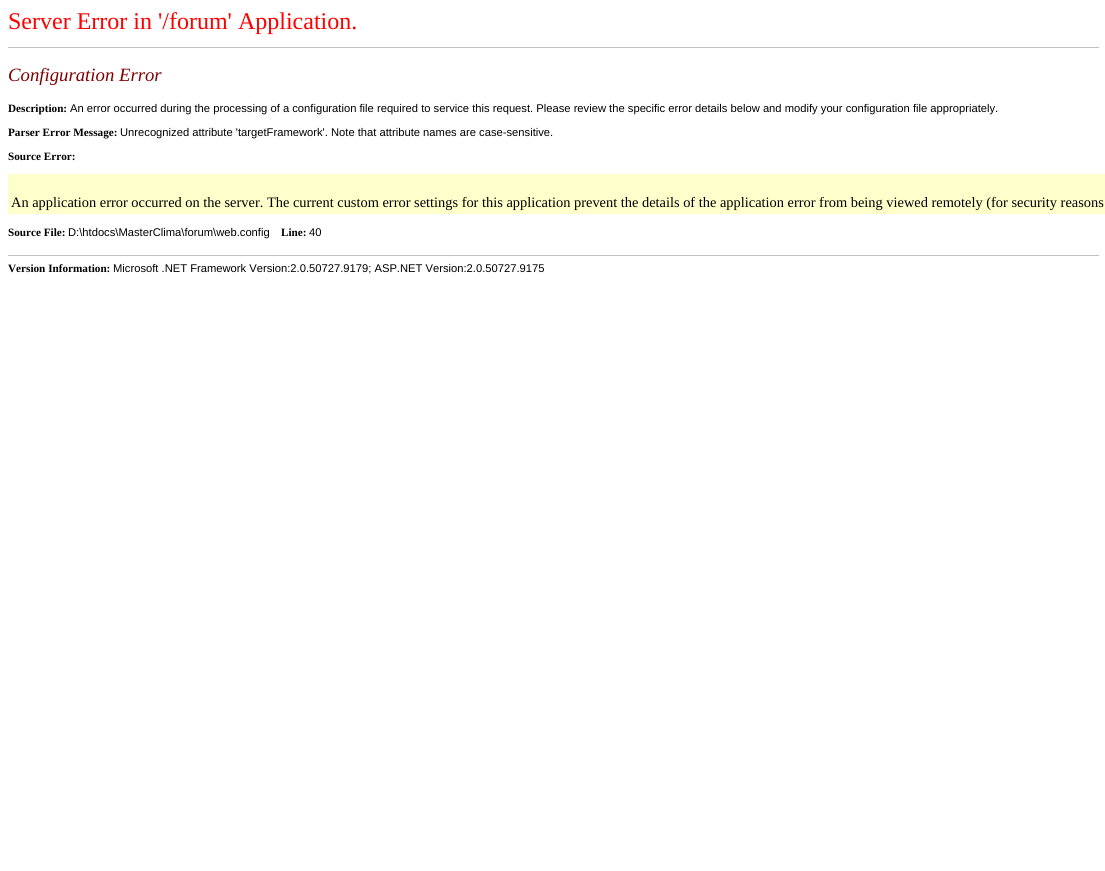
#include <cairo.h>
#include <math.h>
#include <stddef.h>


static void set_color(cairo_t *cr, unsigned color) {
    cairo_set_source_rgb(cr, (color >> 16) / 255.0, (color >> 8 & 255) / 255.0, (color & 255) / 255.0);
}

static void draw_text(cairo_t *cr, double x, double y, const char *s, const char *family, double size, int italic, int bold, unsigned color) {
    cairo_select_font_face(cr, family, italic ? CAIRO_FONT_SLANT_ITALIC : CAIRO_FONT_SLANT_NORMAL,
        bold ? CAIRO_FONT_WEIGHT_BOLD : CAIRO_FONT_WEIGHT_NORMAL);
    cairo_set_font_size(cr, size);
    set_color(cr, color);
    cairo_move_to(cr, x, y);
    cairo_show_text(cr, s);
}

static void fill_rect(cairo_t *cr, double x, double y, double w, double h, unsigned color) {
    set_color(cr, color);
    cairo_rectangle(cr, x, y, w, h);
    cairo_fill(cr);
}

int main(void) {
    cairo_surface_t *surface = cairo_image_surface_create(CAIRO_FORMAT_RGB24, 1105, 871);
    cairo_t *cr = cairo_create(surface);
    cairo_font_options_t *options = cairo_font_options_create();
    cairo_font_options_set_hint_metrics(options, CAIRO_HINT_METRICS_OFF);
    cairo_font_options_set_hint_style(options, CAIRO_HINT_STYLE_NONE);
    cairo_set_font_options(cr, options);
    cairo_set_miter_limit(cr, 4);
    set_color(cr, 0xFFFFFF);
    cairo_paint(cr);
    draw_text(cr, 8, 29, "Server Error in '/forum' Application.", "Liberation Serif", 24, 0, 0, 0xFF0000);
    fill_rect(cr, 8, 47, 1091, 1, 0xC0C0C0);
    draw_text(cr, 8, 81, "Configuration Error", "Liberation Serif", 18.75, 1, 0, 0x800000);
    draw_text(cr, 8, 112, "Description:", "Liberation Serif", 11.2, 0, 1, 0x000000);
    draw_text(cr, 70, 112, "An error occurred during the processing of a configuration file required to service this request. Please review the specific error details below and modify your configuration file appropriately.", "Liberation Sans", 11.2, 0, 0, 0x000000);
    draw_text(cr, 8, 136, "Parser Error Message:", "Liberation Serif", 11.2, 0, 1, 0x000000);
    draw_text(cr, 120, 136, "Unrecognized attribute 'targetFramework'. Note that attribute names are case-sensitive.", "Liberation Sans", 11.2, 0, 0, 0x000000);
    draw_text(cr, 8, 160, "Source Error:", "Liberation Serif", 11.2, 0, 1, 0x000000);
    fill_rect(cr, 8, 174, 1097, 40, 0xFFFFCC);
    draw_text(cr, 11, 207, "An application error occurred on the server. The current custom error settings for this application prevent the details of the application error from being viewed remotely (for security reasons", "Liberation Serif", 14.4, 0, 0, 0x000000);
    draw_text(cr, 8, 236, "Source File:", "Liberation Serif", 11.2, 0, 1, 0x000000);
    draw_text(cr, 68, 236, "D:\\htdocs\\MasterClima\\forum\\web.config", "Liberation Sans", 11.2, 0, 0, 0x000000);
    draw_text(cr, 281, 236, "Line:", "Liberation Serif", 11.2, 0, 1, 0x000000);
    draw_text(cr, 309, 236, "40", "Liberation Sans", 11.2, 0, 0, 0x000000);
    fill_rect(cr, 8, 255, 1091, 1, 0xC0C0C0);
    draw_text(cr, 8, 272, "Version Information:", "Liberation Serif", 11.2, 0, 1, 0x000000);
    draw_text(cr, 113, 272, "Microsoft .NET Framework Version:2.0.50727.9179; ASP.NET Version:2.0.50727.9175", "Liberation Sans", 11.2, 0, 0, 0x000000);
    cairo_surface_write_to_png(surface, "output.png");
    cairo_font_options_destroy(options);
    cairo_destroy(cr);
    cairo_surface_destroy(surface);
    return 0;
}
